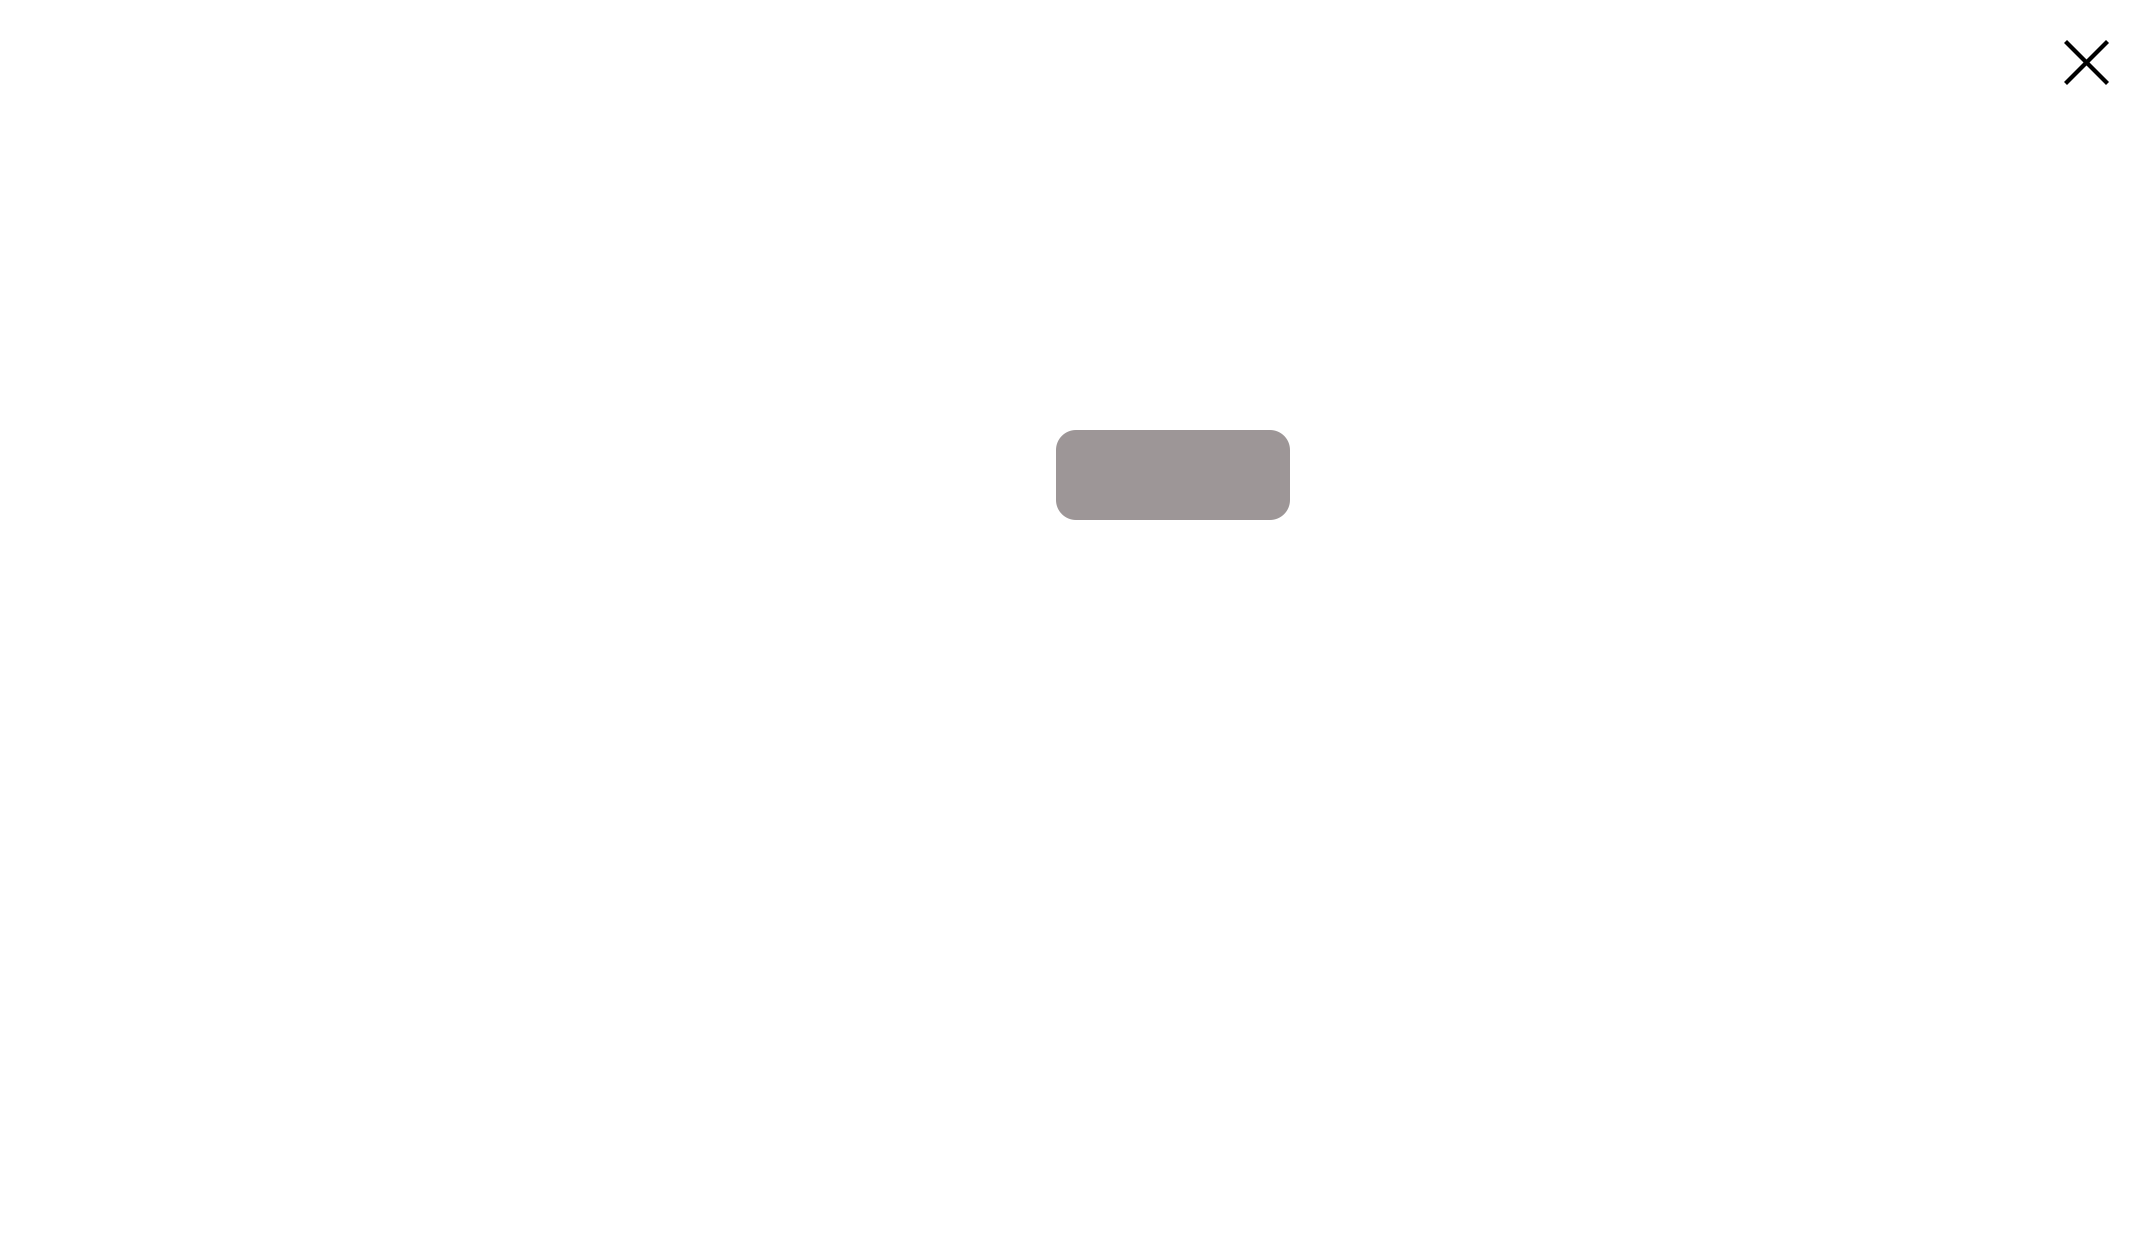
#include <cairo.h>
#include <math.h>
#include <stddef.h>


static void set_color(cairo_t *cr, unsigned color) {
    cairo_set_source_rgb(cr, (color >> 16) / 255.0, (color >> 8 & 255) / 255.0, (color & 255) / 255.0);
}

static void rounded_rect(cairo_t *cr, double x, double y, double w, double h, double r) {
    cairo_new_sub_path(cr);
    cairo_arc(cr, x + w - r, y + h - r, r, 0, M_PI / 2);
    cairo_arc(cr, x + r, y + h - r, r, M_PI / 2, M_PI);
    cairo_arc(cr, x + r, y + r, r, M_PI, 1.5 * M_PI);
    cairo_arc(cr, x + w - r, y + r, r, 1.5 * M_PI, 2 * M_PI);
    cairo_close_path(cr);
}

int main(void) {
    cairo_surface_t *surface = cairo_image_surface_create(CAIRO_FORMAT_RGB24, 2150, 1234);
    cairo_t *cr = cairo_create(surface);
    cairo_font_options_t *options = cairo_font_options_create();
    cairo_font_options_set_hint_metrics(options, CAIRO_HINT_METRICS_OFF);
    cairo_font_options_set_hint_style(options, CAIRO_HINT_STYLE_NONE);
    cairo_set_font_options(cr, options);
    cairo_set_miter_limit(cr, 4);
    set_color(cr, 0xFFFFFF);
    cairo_paint(cr);
    set_color(cr, 0x000000);
    cairo_set_fill_rule(cr, CAIRO_FILL_RULE_EVEN_ODD);
    cairo_new_path(cr);
    cairo_move_to(cr, 2064, 43);
    cairo_line_to(cr, 2067, 40);
    cairo_line_to(cr, 2109, 82);
    cairo_line_to(cr, 2106, 85);
    cairo_close_path(cr);
    cairo_fill(cr);
    cairo_new_path(cr);
    cairo_move_to(cr, 2106, 40);
    cairo_line_to(cr, 2109, 43);
    cairo_line_to(cr, 2067, 85);
    cairo_line_to(cr, 2064, 82);
    cairo_close_path(cr);
    cairo_fill(cr);
    set_color(cr, 0x9D9697);
    rounded_rect(cr, 1056, 430, 234, 90, 20);
    cairo_fill(cr);
    cairo_surface_write_to_png(surface, "output.png");
    cairo_font_options_destroy(options);
    cairo_destroy(cr);
    cairo_surface_destroy(surface);
    return 0;
}
